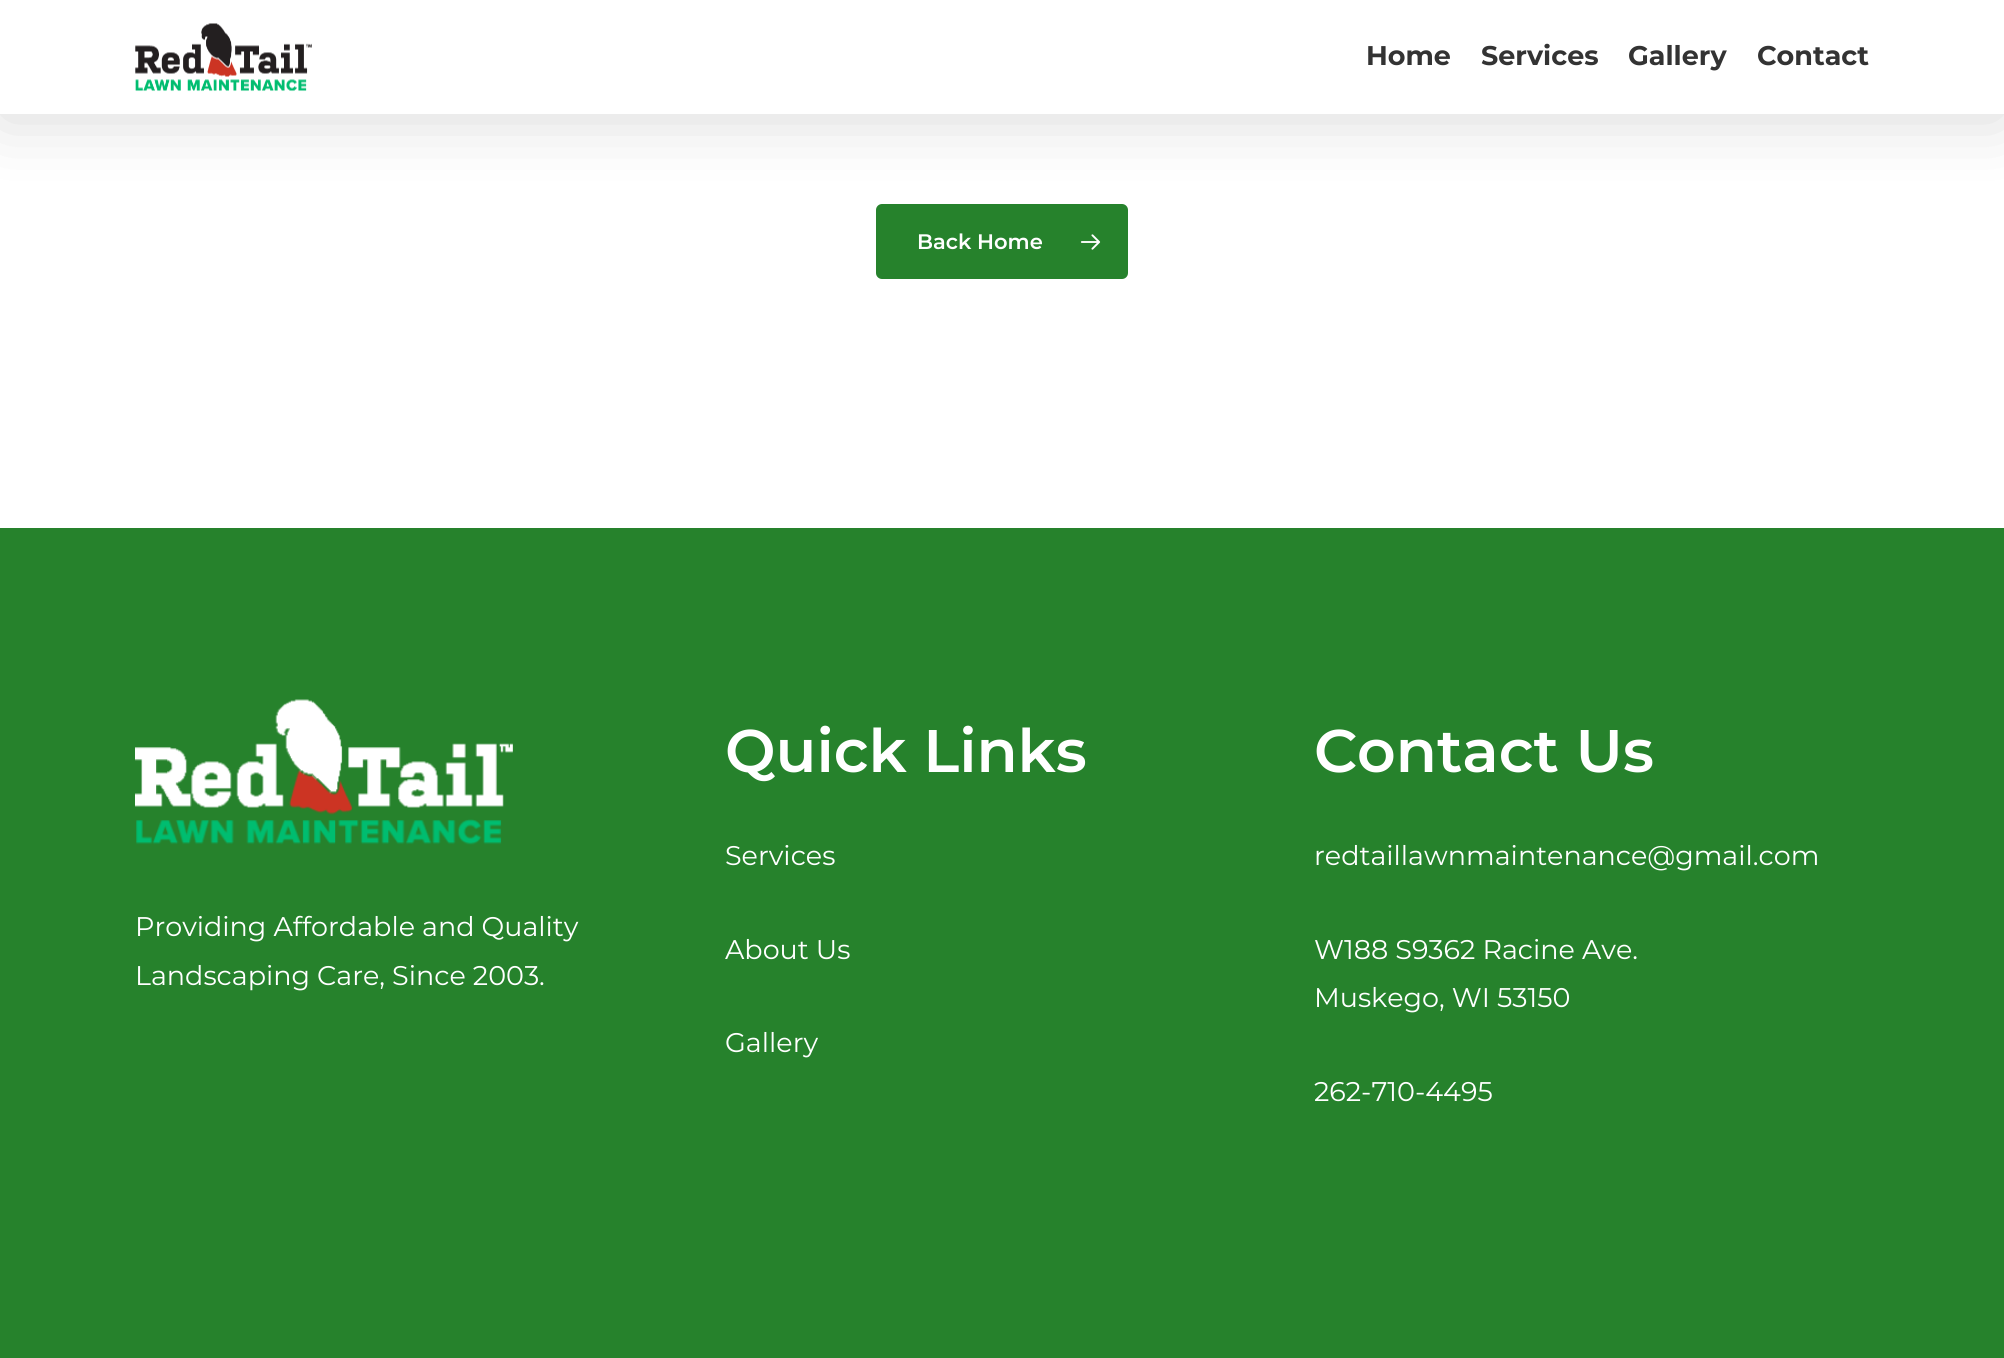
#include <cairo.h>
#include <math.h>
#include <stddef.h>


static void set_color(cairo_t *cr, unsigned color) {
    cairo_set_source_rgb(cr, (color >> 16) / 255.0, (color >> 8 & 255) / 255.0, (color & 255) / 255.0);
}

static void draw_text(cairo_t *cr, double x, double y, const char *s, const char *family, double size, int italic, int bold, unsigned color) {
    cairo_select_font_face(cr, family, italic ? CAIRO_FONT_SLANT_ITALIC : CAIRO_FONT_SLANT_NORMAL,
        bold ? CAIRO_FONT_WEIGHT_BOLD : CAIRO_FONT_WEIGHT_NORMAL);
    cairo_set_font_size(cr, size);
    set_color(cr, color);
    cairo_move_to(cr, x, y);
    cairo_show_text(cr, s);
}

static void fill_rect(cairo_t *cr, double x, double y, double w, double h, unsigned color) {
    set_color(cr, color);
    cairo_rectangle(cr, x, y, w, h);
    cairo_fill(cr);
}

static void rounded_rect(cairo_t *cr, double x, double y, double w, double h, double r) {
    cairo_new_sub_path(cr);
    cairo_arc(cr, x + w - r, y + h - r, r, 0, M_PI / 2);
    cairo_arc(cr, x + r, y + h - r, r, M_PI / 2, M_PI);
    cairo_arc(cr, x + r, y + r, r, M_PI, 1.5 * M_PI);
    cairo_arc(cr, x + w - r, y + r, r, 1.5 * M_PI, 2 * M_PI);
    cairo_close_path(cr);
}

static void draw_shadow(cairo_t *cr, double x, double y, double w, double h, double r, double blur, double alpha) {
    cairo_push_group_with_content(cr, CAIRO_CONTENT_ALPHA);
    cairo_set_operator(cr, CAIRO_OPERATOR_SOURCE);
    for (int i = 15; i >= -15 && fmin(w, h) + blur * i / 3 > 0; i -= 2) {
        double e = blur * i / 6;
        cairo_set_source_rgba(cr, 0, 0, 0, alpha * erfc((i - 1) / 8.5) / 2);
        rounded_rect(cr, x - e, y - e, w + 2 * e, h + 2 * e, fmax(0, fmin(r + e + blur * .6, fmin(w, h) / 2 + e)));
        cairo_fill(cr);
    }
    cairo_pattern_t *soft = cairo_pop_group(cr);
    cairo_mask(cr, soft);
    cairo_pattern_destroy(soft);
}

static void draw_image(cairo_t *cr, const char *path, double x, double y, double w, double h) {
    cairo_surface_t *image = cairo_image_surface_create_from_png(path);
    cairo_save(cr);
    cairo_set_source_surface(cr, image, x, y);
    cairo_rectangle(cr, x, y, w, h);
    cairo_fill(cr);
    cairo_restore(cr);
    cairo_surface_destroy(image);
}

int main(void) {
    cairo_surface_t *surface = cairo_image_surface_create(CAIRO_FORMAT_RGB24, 2004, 1358);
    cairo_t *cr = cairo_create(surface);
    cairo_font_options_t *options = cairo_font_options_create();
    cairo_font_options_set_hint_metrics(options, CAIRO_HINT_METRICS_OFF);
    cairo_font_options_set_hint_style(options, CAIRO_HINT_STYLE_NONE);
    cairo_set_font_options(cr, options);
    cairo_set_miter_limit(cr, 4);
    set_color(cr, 0xFFFFFF);
    cairo_paint(cr);
    set_color(cr, 0x26822C);
    rounded_rect(cr, 876, 204, 252, 75, 6);
    cairo_fill(cr);
    set_color(cr, 0x000000);
    draw_shadow(cr, 0, -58, 2004, 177, 0, 34, 0.15);
    fill_rect(cr, 0, 0, 2004, 114, 0xFFFFFF);
    draw_image(cr, "assets/img1.png", 135, 23, 177, 69);
    draw_text(cr, 1366, 65, "Home", "Montserrat", 27, 0, 1, 0x333333);
    draw_text(cr, 1481, 65, "Services", "Montserrat", 27, 0, 1, 0x333333);
    draw_text(cr, 1628, 65, "Gallery", "Montserrat", 27, 0, 1, 0x333333);
    draw_text(cr, 1757, 65, "Contact", "Montserrat", 27, 0, 1, 0x333333);
    draw_text(cr, 917, 249, "Back Home", "Montserrat SemiBold", 21, 0, 0, 0xFFFFFF);
    draw_image(cr, "assets/img2.png", 1080, 234, 21, 16);
    fill_rect(cr, 0, 528, 2004, 830, 0x26822C);
    draw_image(cr, "assets/img3.png", 135, 699, 378, 146);
    draw_text(cr, 135, 936, "Providing Affordable and Quality", "Montserrat", 27, 0, 0, 0xFFFFFF);
    draw_text(cr, 135, 985, "Landscaping Care, Since 2003.", "Montserrat", 27, 0, 0, 0xFFFFFF);
    draw_text(cr, 725, 772, "Quick Links", "Montserrat SemiBold", 60, 0, 0, 0xFFFFFF);
    draw_text(cr, 725, 865, "Services", "Montserrat", 27, 0, 0, 0xFFFFFF);
    draw_text(cr, 725, 959, "About Us", "Montserrat", 27, 0, 0, 0xFFFFFF);
    draw_text(cr, 725, 1052, "Gallery", "Montserrat", 27, 0, 0, 0xFFFFFF);
    draw_text(cr, 1314, 772, "Contact Us", "Montserrat SemiBold", 60, 0, 0, 0xFFFFFF);
    draw_text(cr, 1314, 865, "redtaillawnmaintenance@gmail.com", "Montserrat", 27, 0, 0, 0xFFFFFF);
    draw_text(cr, 1314, 959, "W188 S9362 Racine Ave.", "Montserrat", 27, 0, 0, 0xFFFFFF);
    draw_text(cr, 1314, 1007, "Muskego, WI 53150", "Montserrat", 27, 0, 0, 0xFFFFFF);
    draw_text(cr, 1314, 1101, "262-710-4495", "Montserrat", 27, 0, 0, 0xFFFFFF);
    cairo_surface_write_to_png(surface, "output.png");
    cairo_font_options_destroy(options);
    cairo_destroy(cr);
    cairo_surface_destroy(surface);
    return 0;
}
